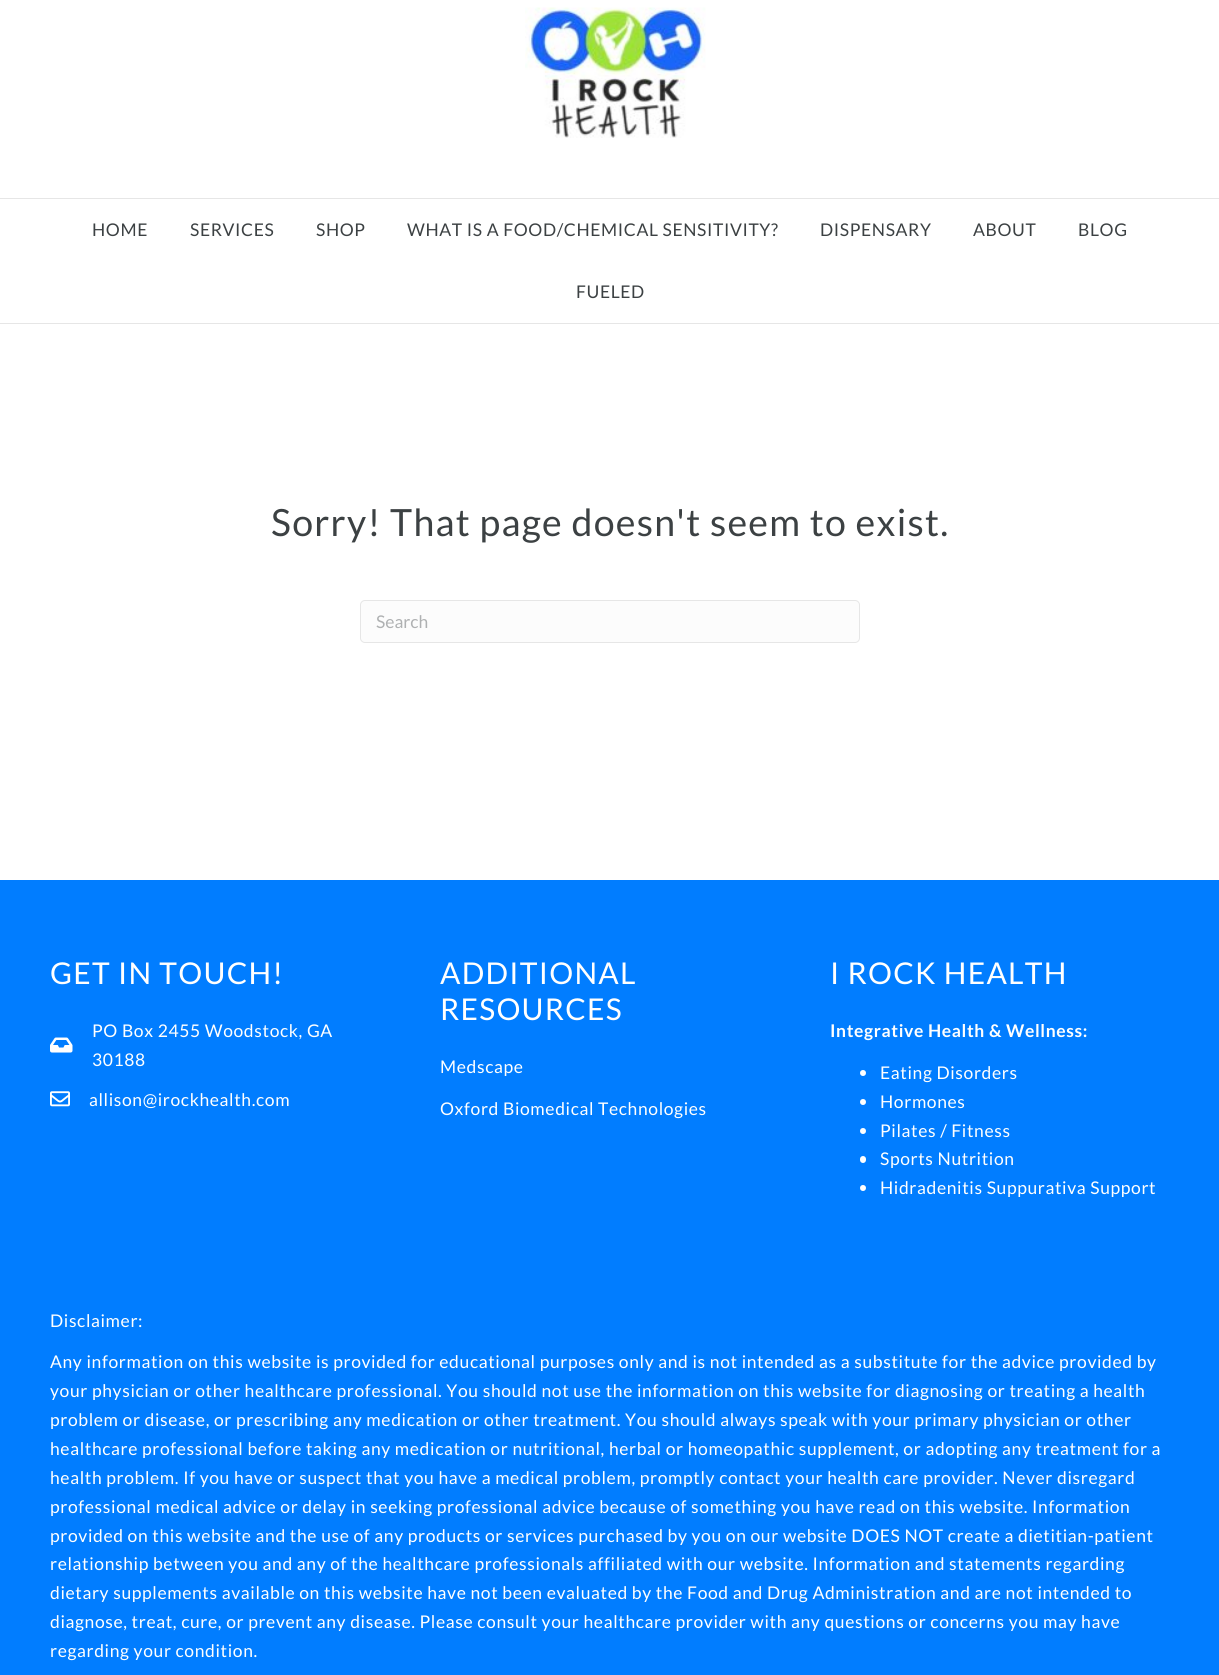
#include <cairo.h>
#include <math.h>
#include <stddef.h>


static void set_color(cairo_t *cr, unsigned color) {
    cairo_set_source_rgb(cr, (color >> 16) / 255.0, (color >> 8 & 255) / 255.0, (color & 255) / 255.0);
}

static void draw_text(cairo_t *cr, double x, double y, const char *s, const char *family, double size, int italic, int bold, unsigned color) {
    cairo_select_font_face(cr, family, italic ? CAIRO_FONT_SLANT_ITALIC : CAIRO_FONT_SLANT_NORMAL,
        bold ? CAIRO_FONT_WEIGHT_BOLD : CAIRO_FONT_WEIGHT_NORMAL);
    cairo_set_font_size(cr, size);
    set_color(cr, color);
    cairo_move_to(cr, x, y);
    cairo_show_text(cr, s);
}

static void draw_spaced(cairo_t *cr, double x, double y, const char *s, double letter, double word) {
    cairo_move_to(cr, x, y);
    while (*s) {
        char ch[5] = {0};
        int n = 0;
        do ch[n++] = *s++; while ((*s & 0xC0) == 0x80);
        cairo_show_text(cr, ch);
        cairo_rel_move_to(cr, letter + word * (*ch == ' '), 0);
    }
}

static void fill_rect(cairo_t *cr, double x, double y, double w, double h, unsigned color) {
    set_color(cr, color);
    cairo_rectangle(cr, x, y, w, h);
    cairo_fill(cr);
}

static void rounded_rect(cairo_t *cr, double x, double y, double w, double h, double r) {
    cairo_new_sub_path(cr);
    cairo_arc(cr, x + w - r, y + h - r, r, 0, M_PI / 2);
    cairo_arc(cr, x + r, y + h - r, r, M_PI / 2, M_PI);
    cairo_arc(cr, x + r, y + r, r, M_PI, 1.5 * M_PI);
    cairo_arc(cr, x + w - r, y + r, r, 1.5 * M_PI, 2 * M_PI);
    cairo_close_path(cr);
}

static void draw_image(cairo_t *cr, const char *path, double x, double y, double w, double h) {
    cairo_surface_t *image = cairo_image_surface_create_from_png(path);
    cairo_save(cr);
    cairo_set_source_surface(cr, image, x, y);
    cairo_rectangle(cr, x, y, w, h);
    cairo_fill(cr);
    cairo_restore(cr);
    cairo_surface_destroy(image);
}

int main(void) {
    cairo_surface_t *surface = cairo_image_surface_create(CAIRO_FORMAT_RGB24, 1219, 1675);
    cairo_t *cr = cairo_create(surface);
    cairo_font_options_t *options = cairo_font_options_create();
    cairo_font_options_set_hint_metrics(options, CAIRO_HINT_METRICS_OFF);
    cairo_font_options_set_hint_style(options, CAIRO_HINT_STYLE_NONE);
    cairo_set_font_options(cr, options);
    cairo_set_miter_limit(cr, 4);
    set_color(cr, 0xFFFFFF);
    cairo_paint(cr);
    draw_image(cr, "assets/img1.png", 525, 7, 181, 131);
    fill_rect(cr, 0, 198, 1219, 1, 0xE6E6E6);
    fill_rect(cr, 0, 323, 1219, 1, 0xE6E6E6);
    cairo_select_font_face(cr, "Lato", CAIRO_FONT_SLANT_NORMAL, CAIRO_FONT_WEIGHT_NORMAL);
    cairo_set_font_size(cr, 17.5);
    set_color(cr, 0x3C4143);
    draw_spaced(cr, 92, 236, "HOME", 0.62, 0);
    draw_spaced(cr, 190, 236, "SERVICES", 0.62, 0);
    draw_spaced(cr, 316, 236, "SHOP", 0.62, 0);
    draw_spaced(cr, 407, 236, "WHAT IS A FOOD/CHEMICAL SENSITIVITY?", 0.62, 0);
    draw_spaced(cr, 820, 236, "DISPENSARY", 0.62, 0);
    draw_spaced(cr, 973, 236, "ABOUT", 0.62, 0);
    draw_spaced(cr, 1078, 236, "BLOG", 0.62, 0);
    draw_spaced(cr, 576, 298, "FUELED", 0.62, 0);
    cairo_set_font_size(cr, 37.5);
    draw_spaced(cr, 271, 536, "Sorry! That page doesn't seem to exist.", 1.25, 0);
    set_color(cr, 0xFCFCFC);
    rounded_rect(cr, 360.5, 600.5, 499, 42, 4.5);
    cairo_fill_preserve(cr);
    set_color(cr, 0xE6E6E6);
    cairo_set_line_width(cr, 1);
    cairo_stroke(cr);
    draw_text(cr, 376, 628, "Search", "Lato", 17.5, 0, 0, 0xAFB1B2);
    fill_rect(cr, 0, 880, 1219, 795, 0x017DFF);
    cairo_set_font_size(cr, 30);
    set_color(cr, 0xFFFFFF);
    draw_spaced(cr, 50, 984, "GET IN TOUCH!", 1.25, 0);
    draw_image(cr, "assets/img2.png", 50, 1037, 23, 16);
    cairo_set_font_size(cr, 17.5);
    draw_spaced(cr, 92, 1037, "PO Box 2455 Woodstock, GA", 0.62, 0);
    draw_spaced(cr, 92, 1066, "30188", 0.62, 0);
    draw_image(cr, "assets/img3.png", 50, 1091, 20, 16);
    draw_spaced(cr, 89, 1106, "allison@irockhealth.com", 0.62, 0);
    cairo_set_font_size(cr, 30);
    draw_spaced(cr, 440, 984, "ADDITIONAL", 1.25, 0);
    draw_spaced(cr, 440, 1020, "RESOURCES", 1.25, 0);
    cairo_set_font_size(cr, 17.5);
    draw_spaced(cr, 440, 1073, "Medscape", 0.62, 0);
    draw_spaced(cr, 440, 1115, "Oxford Biomedical Technologies", 0.62, 0);
    cairo_set_font_size(cr, 30);
    draw_spaced(cr, 830, 984, "I ROCK HEALTH", 1.25, 0);
    cairo_select_font_face(cr, "Lato", CAIRO_FONT_SLANT_NORMAL, CAIRO_FONT_WEIGHT_BOLD);
    cairo_set_font_size(cr, 17.5);
    draw_spaced(cr, 830, 1037, "Integrative Health & Wellness:", 0.62, 0);
    cairo_new_path(cr);
    cairo_arc(cr, 863, 1073, 3, 0, 2 * M_PI);
    cairo_fill(cr);
    cairo_select_font_face(cr, "Lato", CAIRO_FONT_SLANT_NORMAL, CAIRO_FONT_WEIGHT_NORMAL);
    draw_spaced(cr, 880, 1079, "Eating Disorders", 0.62, 0);
    cairo_new_path(cr);
    cairo_arc(cr, 863, 1102, 3, 0, 2 * M_PI);
    cairo_fill(cr);
    draw_spaced(cr, 880, 1108, "Hormones", 0.62, 0);
    cairo_new_path(cr);
    cairo_arc(cr, 863, 1131, 3, 0, 2 * M_PI);
    cairo_fill(cr);
    draw_spaced(cr, 880, 1137, "Pilates / Fitness", 0.62, 0);
    rounded_rect(cr, 860, 1156, 6, 7, 3);
    cairo_fill(cr);
    draw_spaced(cr, 880, 1165, "Sports Nutrition", 0.62, 0);
    cairo_new_path(cr);
    cairo_arc(cr, 863, 1188, 3, 0, 2 * M_PI);
    cairo_fill(cr);
    draw_spaced(cr, 880, 1194, "Hidradenitis Suppurativa Support", 0.62, 0);
    draw_spaced(cr, 50, 1327, "Disclaimer:", 0.62, 0);
    draw_spaced(cr, 50, 1368, "Any information on this website is provided for educational purposes only and is not intended as a substitute for the advice provided by", 0.62, 0);
    draw_spaced(cr, 50, 1397, "your physician or other healthcare professional. You should not use the information on this website for diagnosing or treating a health", 0.62, 0);
    draw_spaced(cr, 50, 1426, "problem or disease, or prescribing any medication or other treatment. You should always speak with your primary physician or other", 0.62, 0);
    draw_spaced(cr, 50, 1455, "healthcare professional before taking any medication or nutritional, herbal or homeopathic supplement, or adopting any treatment for a", 0.62, 0);
    draw_spaced(cr, 50, 1484, "health problem. If you have or suspect that you have a medical problem, promptly contact your health care provider. Never disregard", 0.62, 0);
    draw_spaced(cr, 50, 1513, "professional medical advice or delay in seeking professional advice because of something you have read on this website. Information", 0.62, 0);
    draw_spaced(cr, 50, 1542, "provided on this website and the use of any products or services purchased by you on our website DOES NOT create a dietitian-patient", 0.62, 0);
    draw_spaced(cr, 50, 1570, "relationship between you and any of the healthcare professionals affiliated with our website. Information and statements regarding", 0.62, 0);
    draw_spaced(cr, 50, 1599, "dietary supplements available on this website have not been evaluated by the Food and Drug Administration and are not intended to", 0.62, 0);
    draw_spaced(cr, 50, 1628, "diagnose, treat, cure, or prevent any disease. Please consult your healthcare provider with any questions or concerns you may have", 0.62, 0);
    draw_spaced(cr, 50, 1657, "regarding your condition.", 0.62, 0);
    cairo_surface_write_to_png(surface, "output.png");
    cairo_font_options_destroy(options);
    cairo_destroy(cr);
    cairo_surface_destroy(surface);
    return 0;
}
